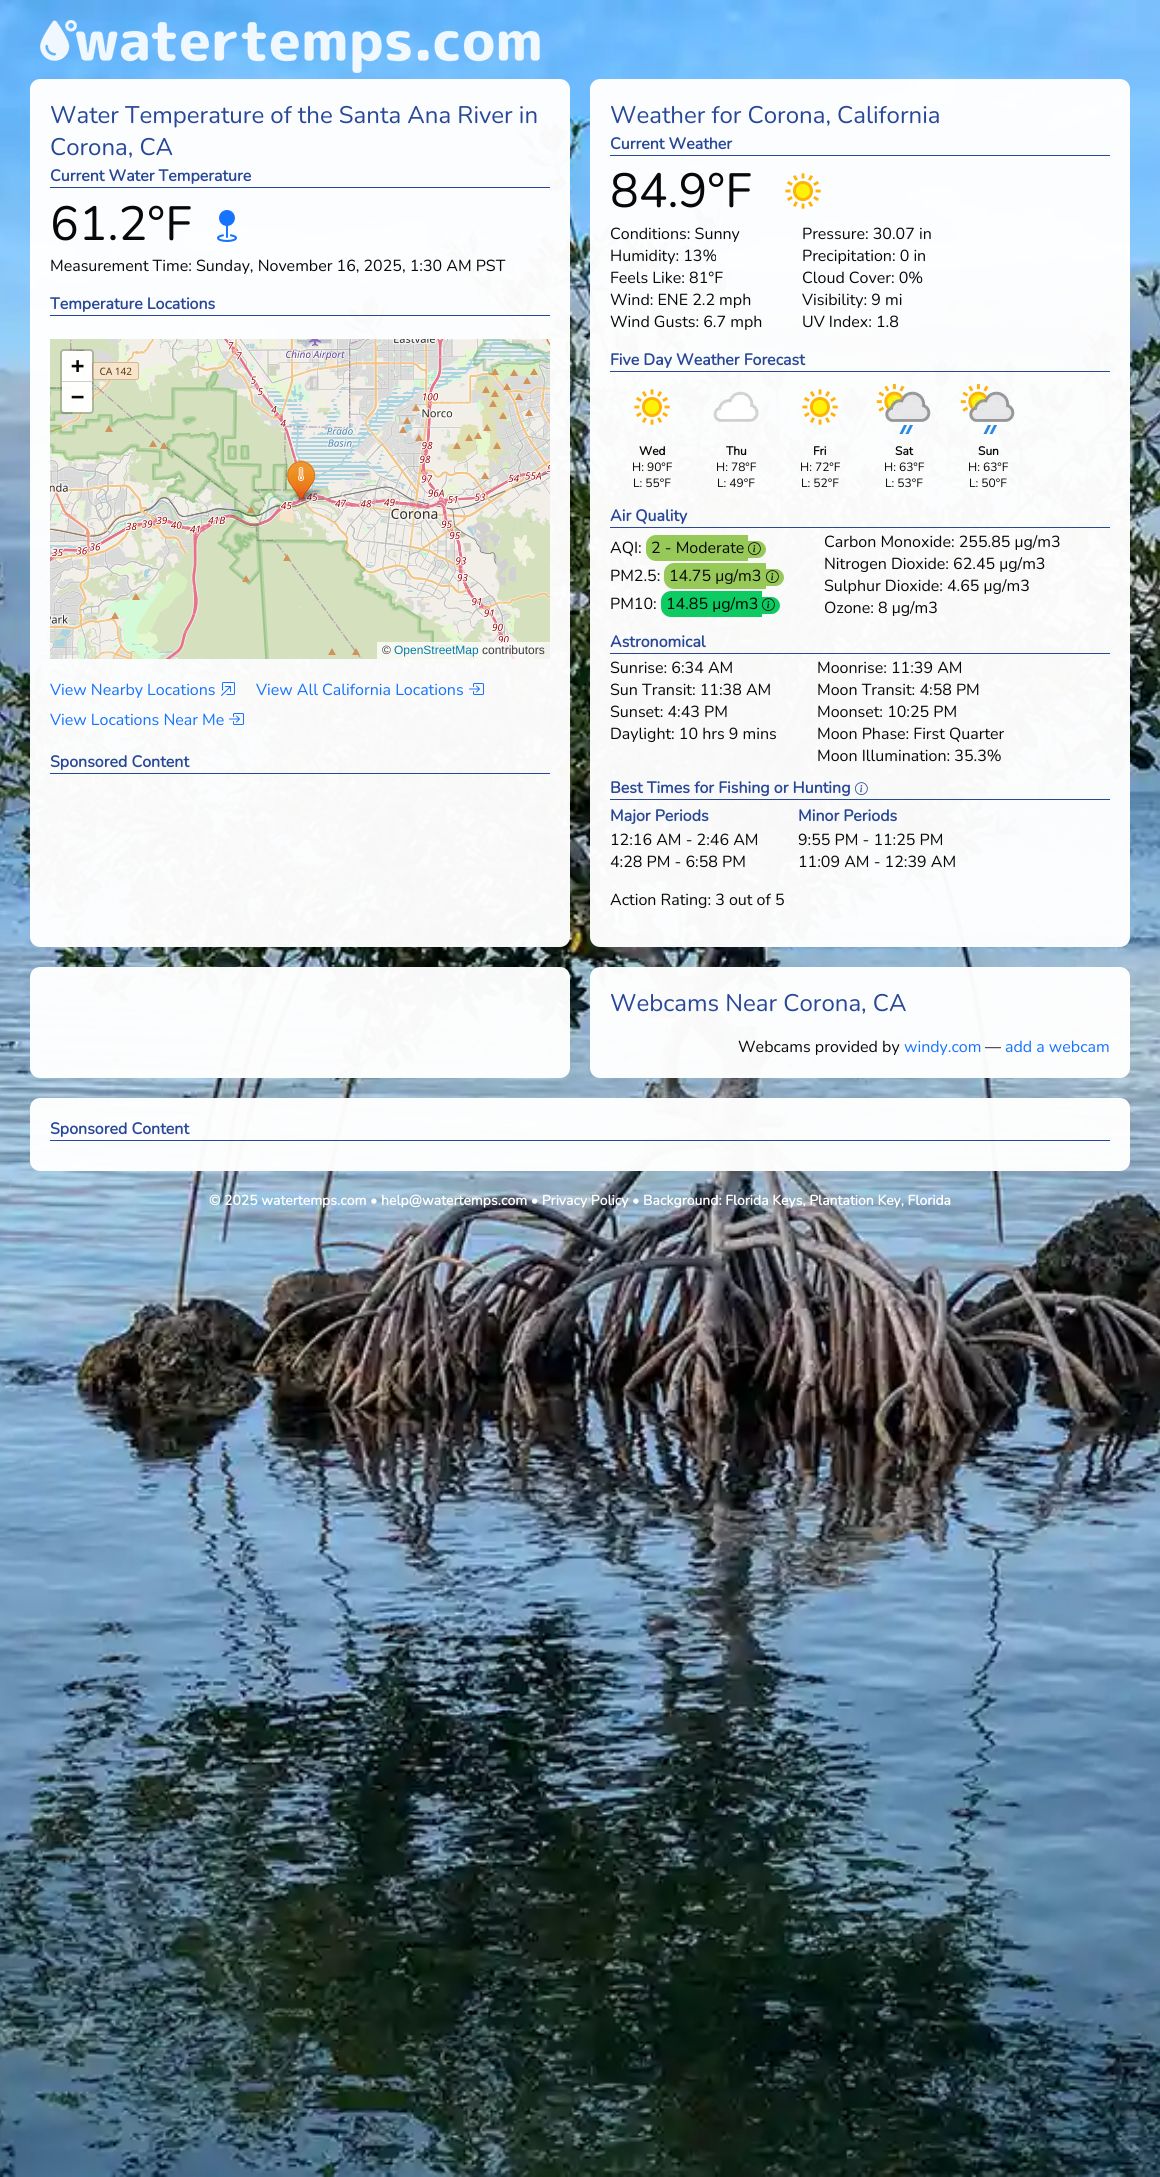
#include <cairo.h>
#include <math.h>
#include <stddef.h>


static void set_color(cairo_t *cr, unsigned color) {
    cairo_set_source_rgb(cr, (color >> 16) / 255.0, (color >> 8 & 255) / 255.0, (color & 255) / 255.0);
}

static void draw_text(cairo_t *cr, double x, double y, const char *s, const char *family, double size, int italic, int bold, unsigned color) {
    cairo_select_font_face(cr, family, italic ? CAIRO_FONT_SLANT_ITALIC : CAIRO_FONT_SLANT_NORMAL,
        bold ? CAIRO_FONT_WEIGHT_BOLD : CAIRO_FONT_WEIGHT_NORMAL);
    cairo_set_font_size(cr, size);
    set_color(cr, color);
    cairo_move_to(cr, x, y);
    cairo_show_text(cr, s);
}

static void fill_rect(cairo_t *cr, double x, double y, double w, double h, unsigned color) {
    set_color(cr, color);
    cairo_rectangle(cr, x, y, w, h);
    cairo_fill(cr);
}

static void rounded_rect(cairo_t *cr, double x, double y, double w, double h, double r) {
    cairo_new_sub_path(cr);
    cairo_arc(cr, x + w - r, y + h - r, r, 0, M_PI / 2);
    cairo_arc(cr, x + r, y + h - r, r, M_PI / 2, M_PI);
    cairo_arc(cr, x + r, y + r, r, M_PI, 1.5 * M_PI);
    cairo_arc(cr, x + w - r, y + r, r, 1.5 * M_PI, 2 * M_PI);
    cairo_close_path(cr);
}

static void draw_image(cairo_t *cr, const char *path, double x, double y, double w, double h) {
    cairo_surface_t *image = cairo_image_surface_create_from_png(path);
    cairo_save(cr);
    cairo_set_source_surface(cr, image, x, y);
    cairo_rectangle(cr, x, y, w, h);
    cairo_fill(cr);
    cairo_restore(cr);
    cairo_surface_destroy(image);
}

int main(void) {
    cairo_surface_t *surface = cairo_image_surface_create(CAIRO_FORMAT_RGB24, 1160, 2177);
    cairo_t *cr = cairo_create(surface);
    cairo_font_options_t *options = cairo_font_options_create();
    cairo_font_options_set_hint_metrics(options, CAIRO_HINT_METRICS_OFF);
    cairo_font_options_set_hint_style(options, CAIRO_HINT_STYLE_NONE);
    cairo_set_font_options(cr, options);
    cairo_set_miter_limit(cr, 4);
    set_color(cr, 0xFFFFFF);
    cairo_paint(cr);
    draw_image(cr, "assets/img1.png", 0, 0, 1160, 2177);
    draw_image(cr, "assets/img2.png", 40, 20, 500, 53);
    cairo_set_source_rgba(cr, 1, 1, 1, 0.97);
    rounded_rect(cr, 30, 79, 540, 868, 10);
    cairo_fill(cr);
    draw_text(cr, 50, 123, "Water Temperature of the Santa Ana River in", "Nunito", 24, 0, 0, 0x284897);
    draw_text(cr, 50, 155, "Corona, CA", "Nunito", 24, 0, 0, 0x284897);
    cairo_set_source_rgba(cr, 0.133, 0.259, 0.58, 0.97);
    cairo_rectangle(cr, 50, 187, 500, 1);
    cairo_fill(cr);
    draw_text(cr, 50, 181, "Current Water Temperature", "Nunito", 16, 0, 1, 0x284897);
    draw_text(cr, 50, 240, "61.2°F", "Nunito", 48, 0, 0, 0x080808);
    draw_image(cr, "assets/img3.png", 217, 210, 20, 32);
    draw_text(cr, 50, 271, "Measurement Time: Sunday, November 16, 2025, 1:30 AM PST", "Nunito", 16, 0, 0, 0x080808);
    cairo_set_source_rgba(cr, 0.133, 0.259, 0.58, 0.97);
    cairo_rectangle(cr, 50, 315, 500, 1);
    cairo_fill(cr);
    draw_text(cr, 50, 309, "Temperature Locations", "Nunito", 16, 0, 1, 0x284897);
    draw_image(cr, "assets/img4.png", 50, 339, 63, 183);
    draw_image(cr, "assets/img5.png", 113, 339, 256, 183);
    draw_image(cr, "assets/img6.png", 369, 339, 181, 183);
    draw_image(cr, "assets/img7.png", 50, 522, 63, 137);
    draw_image(cr, "assets/img8.png", 113, 522, 256, 137);
    draw_image(cr, "assets/img9.png", 369, 522, 181, 137);
    draw_image(cr, "assets/img12.png", 294, 488, 29, 15);
    draw_image(cr, "assets/img10.png", 286, 460, 30, 40);
    draw_image(cr, "assets/img11.png", 298, 467, 6, 14);
    rounded_rect(cr, 61, 350, 32, 63, 3);
    cairo_set_source_rgba(cr, 0, 0, 0, 0.19);
    cairo_stroke(cr);
    cairo_set_source_rgba(cr, 1, 1, 1, 0.97);
    cairo_new_path(cr);
    cairo_move_to(cr, 64, 351);
    cairo_line_to(cr, 90, 351);
    cairo_curve_to(cr, 91, 351, 92, 352, 92, 353);
    cairo_line_to(cr, 92, 382);
    cairo_line_to(cr, 62, 382);
    cairo_line_to(cr, 62, 353);
    cairo_curve_to(cr, 62, 352, 63, 351, 64, 351);
    cairo_close_path(cr);
    cairo_fill(cr);
    fill_rect(cr, 62, 381, 30, 1, 0xCDCDCD);
    draw_text(cr, 71, 373, "+", "DejaVu Sans Mono", 22, 0, 1, 0x080808);
    cairo_set_source_rgba(cr, 1, 1, 1, 0.97);
    cairo_new_path(cr);
    cairo_move_to(cr, 62, 382);
    cairo_line_to(cr, 92, 382);
    cairo_line_to(cr, 92, 410);
    cairo_curve_to(cr, 92, 411, 91, 412, 90, 412);
    cairo_line_to(cr, 64, 412);
    cairo_curve_to(cr, 63, 412, 62, 411, 62, 410);
    cairo_close_path(cr);
    cairo_fill(cr);
    draw_text(cr, 71, 404, "−", "DejaVu Sans Mono", 22, 0, 1, 0x080808);
    cairo_set_source_rgba(cr, 1, 1, 1, 0.78);
    cairo_rectangle(cr, 377, 642, 173, 17);
    cairo_fill(cr);
    draw_text(cr, 382, 654, "©", "Liberation Sans", 12, 0, 0, 0x393939);
    draw_text(cr, 394, 654, "OpenStreetMap", "Liberation Sans", 12, 0, 0, 0x077CAA);
    draw_text(cr, 482, 654, "contributors", "Liberation Sans", 12, 0, 0, 0x393939);
    draw_text(cr, 50, 695, "View Nearby Locations", "Nunito", 16, 0, 0, 0x1472FD);
    draw_image(cr, "assets/img13.png", 221, 682, 14, 14);
    draw_text(cr, 256, 695, "View All California Locations", "Nunito", 16, 0, 0, 0x1472FD);
    draw_image(cr, "assets/img14.png", 469, 683, 15, 12);
    draw_text(cr, 50, 725, "View Locations Near Me", "Nunito", 16, 0, 0, 0x1472FD);
    draw_image(cr, "assets/img15.png", 229, 713, 15, 12);
    cairo_set_source_rgba(cr, 0.133, 0.259, 0.58, 0.97);
    cairo_rectangle(cr, 50, 773, 500, 1);
    cairo_fill(cr);
    draw_text(cr, 50, 767, "Sponsored Content", "Nunito", 16, 0, 1, 0x284897);
    cairo_set_source_rgba(cr, 1, 1, 1, 0.97);
    rounded_rect(cr, 590, 79, 540, 868, 10);
    cairo_fill(cr);
    draw_text(cr, 610, 123, "Weather for Corona, California", "Nunito", 24, 0, 0, 0x284897);
    fill_rect(cr, 610, 155, 500, 1, 0x294897);
    draw_text(cr, 610, 149, "Current Weather", "Nunito", 16, 0, 1, 0x284897);
    draw_text(cr, 610, 207, "84.9°F", "Nunito", 48, 0, 0, 0x080808);
    draw_image(cr, "assets/img16.png", 785, 173, 36, 36);
    draw_text(cr, 610, 239, "Conditions: Sunny", "Nunito", 16, 0, 0, 0x080808);
    draw_text(cr, 610, 261, "Humidity: 13%", "Nunito", 16, 0, 0, 0x080808);
    draw_text(cr, 610, 283, "Feels Like: 81°F", "Nunito", 16, 0, 0, 0x080808);
    draw_text(cr, 610, 305, "Wind: ENE 2.2 mph", "Nunito", 16, 0, 0, 0x080808);
    draw_text(cr, 610, 327, "Wind Gusts: 6.7 mph", "Nunito", 16, 0, 0, 0x080808);
    draw_text(cr, 802, 239, "Pressure: 30.07 in", "Nunito", 16, 0, 0, 0x080808);
    draw_text(cr, 802, 261, "Precipitation: 0 in", "Nunito", 16, 0, 0, 0x080808);
    draw_text(cr, 802, 283, "Cloud Cover: 0%", "Nunito", 16, 0, 0, 0x080808);
    draw_text(cr, 802, 305, "Visibility: 9 mi", "Nunito", 16, 0, 0, 0x080808);
    draw_text(cr, 802, 327, "UV Index: 1.8", "Nunito", 16, 0, 0, 0x080808);
    cairo_set_source_rgba(cr, 0.133, 0.259, 0.58, 0.97);
    cairo_rectangle(cr, 610, 371, 500, 1);
    cairo_fill(cr);
    draw_text(cr, 610, 365, "Five Day Weather Forecast", "Nunito", 16, 0, 1, 0x284897);
    draw_image(cr, "assets/img17.png", 634, 389, 36, 36);
    draw_text(cr, 639, 455, "Wed", "Nunito", 12, 0, 1, 0x080808);
    draw_text(cr, 632, 471, "H: 90°F", "Nunito", 12, 0, 0, 0x080808);
    draw_text(cr, 633, 487, "L: 55°F", "Nunito", 12, 0, 0, 0x080808);
    draw_image(cr, "assets/img18.png", 713, 391, 46, 31);
    draw_text(cr, 726, 455, "Thu", "Nunito", 12, 0, 1, 0x080808);
    draw_text(cr, 716, 471, "H: 78°F", "Nunito", 12, 0, 0, 0x080808);
    draw_text(cr, 717, 487, "L: 49°F", "Nunito", 12, 0, 0, 0x080808);
    draw_image(cr, "assets/img19.png", 802, 389, 36, 36);
    draw_text(cr, 813, 455, "Fri", "Nunito", 12, 0, 1, 0x080808);
    draw_text(cr, 800, 471, "H: 72°F", "Nunito", 12, 0, 0, 0x080808);
    draw_text(cr, 801, 487, "L: 52°F", "Nunito", 12, 0, 0, 0x080808);
    draw_image(cr, "assets/img20.png", 876, 384, 55, 50);
    draw_text(cr, 895, 455, "Sat", "Nunito", 12, 0, 1, 0x080808);
    draw_text(cr, 884, 471, "H: 63°F", "Nunito", 12, 0, 0, 0x080808);
    draw_text(cr, 885, 487, "L: 53°F", "Nunito", 12, 0, 0, 0x080808);
    draw_image(cr, "assets/img21.png", 960, 384, 55, 50);
    draw_text(cr, 978, 455, "Sun", "Nunito", 12, 0, 1, 0x080808);
    draw_text(cr, 968, 471, "H: 63°F", "Nunito", 12, 0, 0, 0x080808);
    draw_text(cr, 969, 487, "L: 50°F", "Nunito", 12, 0, 0, 0x080808);
    cairo_set_source_rgba(cr, 0.133, 0.259, 0.58, 0.97);
    cairo_rectangle(cr, 610, 527, 500, 1);
    cairo_fill(cr);
    draw_text(cr, 610, 521, "Air Quality", "Nunito", 16, 0, 1, 0x284897);
    draw_text(cr, 610, 553, "AQI:", "Nunito", 16, 0, 0, 0x080808);
    cairo_set_source_rgba(cr, 0.58, 0.784, 0.329, 0.97);
    cairo_new_path(cr);
    cairo_move_to(cr, 656, 535);
    cairo_line_to(cr, 748, 535);
    cairo_line_to(cr, 748, 561);
    cairo_line_to(cr, 656, 561);
    cairo_curve_to(cr, 650.5, 561, 646, 556.5, 646, 551);
    cairo_line_to(cr, 646, 545);
    cairo_curve_to(cr, 646, 539.5, 650.5, 535, 656, 535);
    cairo_close_path(cr);
    cairo_fill(cr);
    cairo_new_path(cr);
    cairo_move_to(cr, 748, 541);
    cairo_line_to(cr, 757.5, 541);
    cairo_curve_to(cr, 762, 541, 766, 545, 766, 549.5);
    cairo_curve_to(cr, 766, 554, 762, 558, 757.5, 558);
    cairo_line_to(cr, 748, 558);
    cairo_close_path(cr);
    cairo_fill(cr);
    draw_text(cr, 651, 553, "2 - Moderate", "Nunito", 16, 0, 0, 0x080808);
    draw_image(cr, "assets/img22.png", 748, 542, 13, 13);
    draw_text(cr, 610, 581, "PM2.5:", "Nunito", 16, 0, 0, 0x080808);
    cairo_set_source_rgba(cr, 0.58, 0.784, 0.329, 0.97);
    cairo_new_path(cr);
    cairo_move_to(cr, 674, 563);
    cairo_line_to(cr, 766, 563);
    cairo_line_to(cr, 766, 589);
    cairo_line_to(cr, 674, 589);
    cairo_curve_to(cr, 668.5, 589, 664, 584.5, 664, 579);
    cairo_line_to(cr, 664, 573);
    cairo_curve_to(cr, 664, 567.5, 668.5, 563, 674, 563);
    cairo_close_path(cr);
    cairo_fill(cr);
    cairo_new_path(cr);
    cairo_move_to(cr, 766, 569);
    cairo_line_to(cr, 775.5, 569);
    cairo_curve_to(cr, 780, 569, 784, 573, 784, 577.5);
    cairo_curve_to(cr, 784, 582, 780, 586, 775.5, 586);
    cairo_line_to(cr, 766, 586);
    cairo_close_path(cr);
    cairo_fill(cr);
    draw_text(cr, 669, 581, "14.75 μg/m3", "Nunito", 16, 0, 0, 0x080808);
    draw_image(cr, "assets/img23.png", 766, 570, 13, 13);
    draw_text(cr, 610, 609, "PM10:", "Nunito", 16, 0, 0, 0x080808);
    cairo_set_source_rgba(cr, 0.031, 0.788, 0.369, 0.97);
    cairo_new_path(cr);
    cairo_move_to(cr, 671, 591);
    cairo_line_to(cr, 762, 591);
    cairo_line_to(cr, 762, 617);
    cairo_line_to(cr, 671, 617);
    cairo_curve_to(cr, 665.5, 617, 661, 612.5, 661, 607);
    cairo_line_to(cr, 661, 601);
    cairo_curve_to(cr, 661, 595.5, 665.5, 591, 671, 591);
    cairo_close_path(cr);
    cairo_fill(cr);
    cairo_new_path(cr);
    cairo_move_to(cr, 762, 597);
    cairo_line_to(cr, 771.5, 597);
    cairo_curve_to(cr, 776, 597, 780, 601, 780, 605.5);
    cairo_curve_to(cr, 780, 610, 776, 614, 771.5, 614);
    cairo_line_to(cr, 762, 614);
    cairo_close_path(cr);
    cairo_fill(cr);
    draw_text(cr, 666, 609, "14.85 μg/m3", "Nunito", 16, 0, 0, 0x000603);
    draw_image(cr, "assets/img24.png", 762, 598, 13, 13);
    draw_text(cr, 824, 547, "Carbon Monoxide: 255.85 μg/m3", "Nunito", 16, 0, 0, 0x080808);
    draw_text(cr, 824, 569, "Nitrogen Dioxide: 62.45 μg/m3", "Nunito", 16, 0, 0, 0x080808);
    draw_text(cr, 824, 591, "Sulphur Dioxide: 4.65 μg/m3", "Nunito", 16, 0, 0, 0x080808);
    draw_text(cr, 824, 613, "Ozone: 8 μg/m3", "Nunito", 16, 0, 0, 0x080808);
    cairo_set_source_rgba(cr, 0.133, 0.259, 0.58, 0.97);
    cairo_rectangle(cr, 610, 653, 500, 1);
    cairo_fill(cr);
    draw_text(cr, 610, 647, "Astronomical", "Nunito", 16, 0, 1, 0x284897);
    draw_text(cr, 610, 673, "Sunrise: 6:34 AM", "Nunito", 16, 0, 0, 0x080808);
    draw_text(cr, 610, 695, "Sun Transit: 11:38 AM", "Nunito", 16, 0, 0, 0x080808);
    draw_text(cr, 610, 717, "Sunset: 4:43 PM", "Nunito", 16, 0, 0, 0x080808);
    draw_text(cr, 610, 739, "Daylight: 10 hrs 9 mins", "Nunito", 16, 0, 0, 0x080808);
    draw_text(cr, 817, 673, "Moonrise: 11:39 AM", "Nunito", 16, 0, 0, 0x080808);
    draw_text(cr, 817, 695, "Moon Transit: 4:58 PM", "Nunito", 16, 0, 0, 0x080808);
    draw_text(cr, 817, 717, "Moonset: 10:25 PM", "Nunito", 16, 0, 0, 0x080808);
    draw_text(cr, 817, 739, "Moon Phase: First Quarter", "Nunito", 16, 0, 0, 0x080808);
    draw_text(cr, 817, 761, "Moon Illumination: 35.3%", "Nunito", 16, 0, 0, 0x080808);
    cairo_set_source_rgba(cr, 0.133, 0.259, 0.58, 0.97);
    cairo_rectangle(cr, 610, 799, 500, 1);
    cairo_fill(cr);
    draw_text(cr, 610, 793, "Best Times for Fishing or Hunting", "Nunito", 16, 0, 1, 0x284897);
    draw_image(cr, "assets/img25.png", 855, 782, 13, 13);
    draw_text(cr, 610, 821, "Major Periods", "Nunito", 16, 0, 1, 0x284897);
    draw_text(cr, 610, 845, "12:16 AM - 2:46 AM", "Nunito", 16, 0, 0, 0x080808);
    draw_text(cr, 610, 867, "4:28 PM - 6:58 PM", "Nunito", 16, 0, 0, 0x080808);
    draw_text(cr, 798, 821, "Minor Periods", "Nunito", 16, 0, 1, 0x284897);
    draw_text(cr, 798, 845, "9:55 PM - 11:25 PM", "Nunito", 16, 0, 0, 0x080808);
    draw_text(cr, 798, 867, "11:09 AM - 12:39 AM", "Nunito", 16, 0, 0, 0x080808);
    draw_text(cr, 610, 905, "Action Rating: 3 out of 5", "Nunito", 16, 0, 0, 0x080808);
    cairo_set_source_rgba(cr, 1, 1, 1, 0.97);
    rounded_rect(cr, 30, 967, 540, 111, 10);
    cairo_fill(cr);
    rounded_rect(cr, 590, 967, 540, 111, 10);
    cairo_fill(cr);
    draw_text(cr, 610, 1011, "Webcams Near Corona, CA", "Nunito", 24, 0, 0, 0x284897);
    draw_text(cr, 738, 1052, "Webcams provided by", "Nunito", 16, 0, 0, 0x080808);
    draw_text(cr, 904, 1052, "windy.com", "Nunito", 16, 0, 0, 0x1472FD);
    draw_text(cr, 985, 1052, "—", "Nunito", 16, 0, 0, 0x080808);
    draw_text(cr, 1005, 1052, "add a webcam", "Nunito", 16, 0, 0, 0x1472FD);
    cairo_set_source_rgba(cr, 1, 1, 1, 0.97);
    rounded_rect(cr, 30, 1098, 1100, 73, 10);
    cairo_fill(cr);
    cairo_set_source_rgba(cr, 0.133, 0.259, 0.58, 0.97);
    cairo_rectangle(cr, 50, 1140, 1060, 1);
    cairo_fill(cr);
    draw_text(cr, 50, 1134, "Sponsored Content", "Nunito", 16, 0, 1, 0x284897);
    draw_text(cr, 209, 1205, "© 2025 watertemps.com • help@watertemps.com • Privacy Policy • Background: Florida Keys, Plantation Key, Florida", "Nunito", 14, 0, 1, 0xFFFFFF);
    cairo_surface_write_to_png(surface, "output.png");
    cairo_font_options_destroy(options);
    cairo_destroy(cr);
    cairo_surface_destroy(surface);
    return 0;
}
